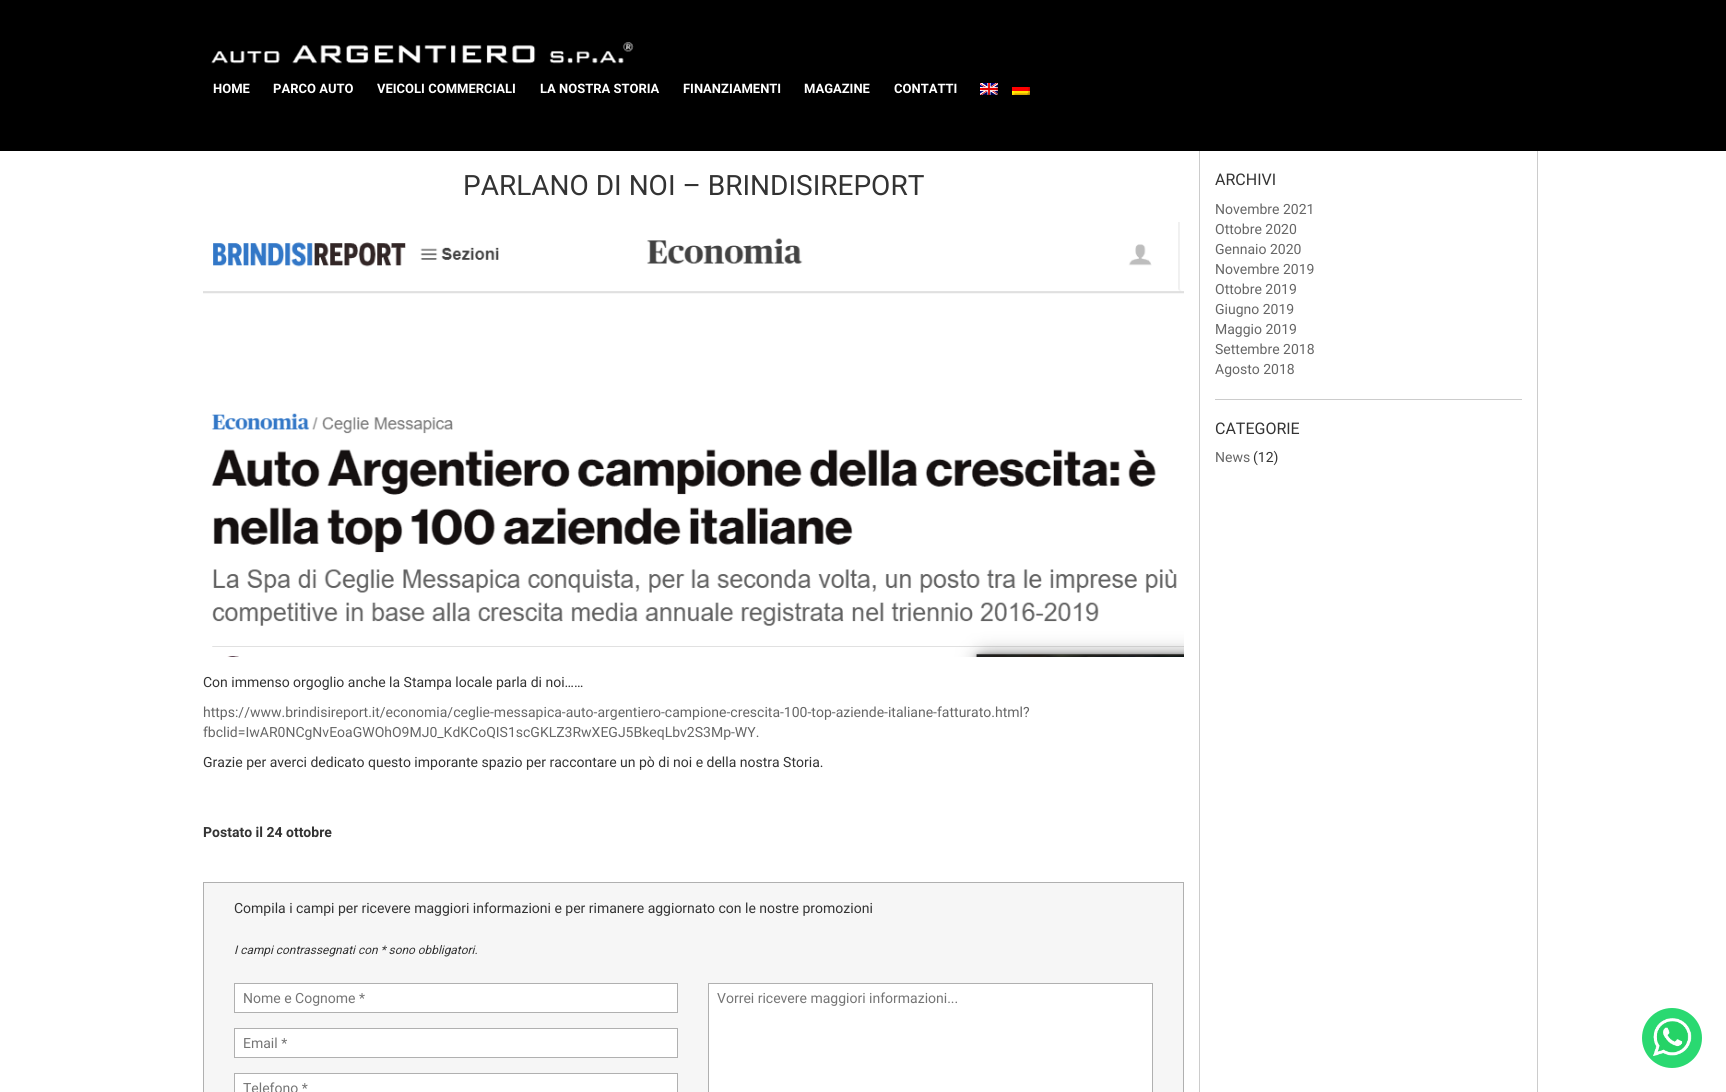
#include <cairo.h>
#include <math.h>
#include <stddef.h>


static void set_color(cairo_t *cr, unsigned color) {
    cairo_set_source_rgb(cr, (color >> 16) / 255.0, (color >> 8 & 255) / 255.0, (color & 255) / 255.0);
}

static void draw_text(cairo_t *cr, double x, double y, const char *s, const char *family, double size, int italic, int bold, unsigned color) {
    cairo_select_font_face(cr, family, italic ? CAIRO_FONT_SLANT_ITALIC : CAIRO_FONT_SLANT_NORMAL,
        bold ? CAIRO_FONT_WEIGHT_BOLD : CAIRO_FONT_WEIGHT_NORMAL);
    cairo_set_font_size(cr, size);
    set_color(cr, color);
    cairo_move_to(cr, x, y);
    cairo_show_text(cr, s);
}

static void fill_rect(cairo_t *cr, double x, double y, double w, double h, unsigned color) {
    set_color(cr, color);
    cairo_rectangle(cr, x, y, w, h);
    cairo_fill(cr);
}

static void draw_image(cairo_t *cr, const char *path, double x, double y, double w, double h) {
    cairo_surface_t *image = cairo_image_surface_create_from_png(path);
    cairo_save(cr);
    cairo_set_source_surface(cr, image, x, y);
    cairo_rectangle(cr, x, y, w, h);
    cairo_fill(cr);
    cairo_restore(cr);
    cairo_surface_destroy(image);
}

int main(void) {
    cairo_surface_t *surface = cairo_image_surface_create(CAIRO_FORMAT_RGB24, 1726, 1092);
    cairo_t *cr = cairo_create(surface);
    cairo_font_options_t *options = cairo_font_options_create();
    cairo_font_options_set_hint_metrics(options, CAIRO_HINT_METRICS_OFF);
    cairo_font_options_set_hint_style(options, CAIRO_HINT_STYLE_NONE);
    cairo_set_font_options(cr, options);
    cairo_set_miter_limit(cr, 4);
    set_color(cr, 0xFFFFFF);
    cairo_paint(cr);
    fill_rect(cr, 0, 0, 1726, 151, 0x000000);
    draw_image(cr, "assets/img1.png", 211, 42, 423, 22);
    draw_text(cr, 213, 93, "HOME", "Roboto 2", 13, 0, 1, 0xFFFFFF);
    draw_text(cr, 273, 93, "PARCO AUTO", "Roboto 2", 13, 0, 1, 0xFFFFFF);
    draw_text(cr, 377, 93, "VEICOLI COMMERCIALI", "Roboto 2", 13, 0, 1, 0xFFFFFF);
    draw_text(cr, 540, 93, "LA NOSTRA STORIA", "Roboto 2", 13, 0, 1, 0xFFFFFF);
    draw_text(cr, 683, 93, "FINANZIAMENTI", "Roboto 2", 13, 0, 1, 0xFFFFFF);
    draw_text(cr, 804, 93, "MAGAZINE", "Roboto 2", 13, 0, 1, 0xFFFFFF);
    draw_text(cr, 894, 93, "CONTATTI", "Roboto 2", 13, 0, 1, 0xFFFFFF);
    draw_image(cr, "assets/img2.png", 980, 83, 18, 12);
    draw_image(cr, "assets/img3.png", 1012, 87, 18, 8);
    fill_rect(cr, 1537, 151, 1, 941, 0xCCCCCC);
    fill_rect(cr, 1199, 151, 1, 941, 0xCCCCCC);
    draw_text(cr, 463, 195, "PARLANO DI NOI – BRINDISIREPORT", "Roboto", 28, 0, 0, 0x333333);
    draw_image(cr, "assets/img4.png", 203, 222, 981, 435);
    draw_text(cr, 203, 687, "Con immenso orgoglio anche la Stampa locale parla di noi……", "Roboto", 14, 0, 0, 0x333333);
    draw_text(cr, 203, 717, "https://www.brindisireport.it/economia/ceglie-messapica-auto-argentiero-campione-crescita-100-top-aziende-italiane-fatturato.html?", "Roboto", 14, 0, 0, 0x666666);
    draw_text(cr, 203, 737, "fbclid=IwAR0NCgNvEoaGWOhO9MJ0_KdKCoQIS1scGKLZ3RwXEGJ5BkeqLbv2S3Mp-WY.", "Roboto", 14, 0, 0, 0x666666);
    draw_text(cr, 203, 767, "Grazie per averci dedicato questo imporante spazio per raccontare un pò di noi e della nostra Storia.", "Roboto", 14, 0, 0, 0x333333);
    draw_text(cr, 203, 837, "Postato il 24 ottobre", "Roboto", 14, 0, 1, 0x333333);
    set_color(cr, 0xF6F6F6);
    cairo_rectangle(cr, 203.5, 882.5, 980, 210);
    cairo_fill_preserve(cr);
    set_color(cr, 0xB0B0B0);
    cairo_set_line_width(cr, 1);
    cairo_stroke(cr);
    draw_text(cr, 234, 913, "Compila i campi per ricevere maggiori informazioni e per rimanere aggiornato con le nostre promozioni", "Roboto", 14, 0, 0, 0x333333);
    draw_text(cr, 234, 954, "I campi contrassegnati con * sono obbligatori.", "Roboto", 11.9, 1, 0, 0x333333);
    set_color(cr, 0xFFFFFF);
    cairo_rectangle(cr, 234.5, 983.5, 443, 29);
    cairo_fill_preserve(cr);
    set_color(cr, 0xB0B0B0);
    cairo_stroke(cr);
    draw_text(cr, 243, 1003, "Nome e Cognome *", "Roboto", 14, 0, 0, 0x757575);
    set_color(cr, 0xFFFFFF);
    cairo_rectangle(cr, 234.5, 1028.5, 443, 29);
    cairo_fill_preserve(cr);
    set_color(cr, 0xB0B0B0);
    cairo_stroke(cr);
    draw_text(cr, 243, 1048, "Email *", "Roboto", 14, 0, 0, 0x757575);
    set_color(cr, 0xFFFFFF);
    cairo_rectangle(cr, 234.5, 1073.5, 443, 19);
    cairo_fill_preserve(cr);
    set_color(cr, 0xB0B0B0);
    cairo_stroke(cr);
    draw_text(cr, 243, 1093, "Telefono *", "Roboto", 14, 0, 0, 0x757575);
    set_color(cr, 0xFFFFFF);
    cairo_rectangle(cr, 708.5, 983.5, 444, 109);
    cairo_fill_preserve(cr);
    set_color(cr, 0xB0B0B0);
    cairo_stroke(cr);
    draw_text(cr, 717, 1003, "Vorrei ricevere maggiori informazioni...", "Roboto", 14, 0, 0, 0x757575);
    fill_rect(cr, 1215, 399, 307, 1, 0xCCCCCC);
    draw_text(cr, 1215, 185, "ARCHIVI", "Roboto", 16, 0, 0, 0x333333);
    draw_text(cr, 1215, 214, "Novembre 2021", "Roboto", 14, 0, 0, 0x666666);
    draw_text(cr, 1215, 234, "Ottobre 2020", "Roboto", 14, 0, 0, 0x666666);
    draw_text(cr, 1215, 254, "Gennaio 2020", "Roboto", 14, 0, 0, 0x666666);
    draw_text(cr, 1215, 274, "Novembre 2019", "Roboto", 14, 0, 0, 0x666666);
    draw_text(cr, 1215, 294, "Ottobre 2019", "Roboto", 14, 0, 0, 0x666666);
    draw_text(cr, 1215, 314, "Giugno 2019", "Roboto", 14, 0, 0, 0x666666);
    draw_text(cr, 1215, 334, "Maggio 2019", "Roboto", 14, 0, 0, 0x666666);
    draw_text(cr, 1215, 354, "Settembre 2018", "Roboto", 14, 0, 0, 0x666666);
    draw_text(cr, 1215, 374, "Agosto 2018", "Roboto", 14, 0, 0, 0x666666);
    draw_text(cr, 1215, 434, "CATEGORIE", "Roboto", 16, 0, 0, 0x333333);
    draw_text(cr, 1215, 462, "News", "Roboto", 14, 0, 0, 0x666666);
    draw_text(cr, 1253, 462, "(12)", "Roboto", 14, 0, 0, 0x333333);
    set_color(cr, 0x2AD971);
    cairo_new_path(cr);
    cairo_arc(cr, 1672, 1038, 30, 0, 2 * M_PI);
    cairo_fill(cr);
    draw_image(cr, "assets/img5.png", 1653, 1018, 39, 38);
    cairo_surface_write_to_png(surface, "output.png");
    cairo_font_options_destroy(options);
    cairo_destroy(cr);
    cairo_surface_destroy(surface);
    return 0;
}
